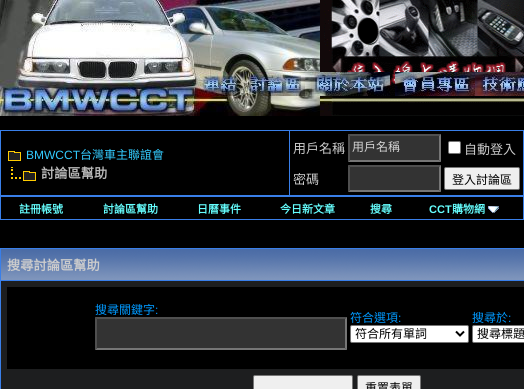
#include <cairo.h>
#include <math.h>
#include <stddef.h>


static void set_color(cairo_t *cr, unsigned color) {
    cairo_set_source_rgb(cr, (color >> 16) / 255.0, (color >> 8 & 255) / 255.0, (color & 255) / 255.0);
}

static void draw_text(cairo_t *cr, double x, double y, const char *s, const char *family, double size, int italic, int bold, unsigned color) {
    cairo_select_font_face(cr, family, italic ? CAIRO_FONT_SLANT_ITALIC : CAIRO_FONT_SLANT_NORMAL,
        bold ? CAIRO_FONT_WEIGHT_BOLD : CAIRO_FONT_WEIGHT_NORMAL);
    cairo_set_font_size(cr, size);
    set_color(cr, color);
    cairo_move_to(cr, x, y);
    cairo_show_text(cr, s);
}

static void fill_rect(cairo_t *cr, double x, double y, double w, double h, unsigned color) {
    set_color(cr, color);
    cairo_rectangle(cr, x, y, w, h);
    cairo_fill(cr);
}

static void rounded_rect(cairo_t *cr, double x, double y, double w, double h, double r) {
    cairo_new_sub_path(cr);
    cairo_arc(cr, x + w - r, y + h - r, r, 0, M_PI / 2);
    cairo_arc(cr, x + r, y + h - r, r, M_PI / 2, M_PI);
    cairo_arc(cr, x + r, y + r, r, M_PI, 1.5 * M_PI);
    cairo_arc(cr, x + w - r, y + r, r, 1.5 * M_PI, 2 * M_PI);
    cairo_close_path(cr);
}

static void draw_image(cairo_t *cr, const char *path, double x, double y, double w, double h) {
    cairo_surface_t *image = cairo_image_surface_create_from_png(path);
    cairo_save(cr);
    cairo_set_source_surface(cr, image, x, y);
    cairo_rectangle(cr, x, y, w, h);
    cairo_fill(cr);
    cairo_restore(cr);
    cairo_surface_destroy(image);
}

int main(void) {
    cairo_surface_t *surface = cairo_image_surface_create(CAIRO_FORMAT_RGB24, 524, 389);
    cairo_t *cr = cairo_create(surface);
    cairo_font_options_t *options = cairo_font_options_create();
    cairo_font_options_set_hint_metrics(options, CAIRO_HINT_METRICS_OFF);
    cairo_font_options_set_hint_style(options, CAIRO_HINT_STYLE_NONE);
    cairo_set_font_options(cr, options);
    cairo_set_miter_limit(cr, 4);
    set_color(cr, 0x000000);
    cairo_paint(cr);
    draw_image(cr, "assets/img1.png", 0, 0, 200, 116);
    draw_image(cr, "assets/img2.png", 200, 0, 120, 116);
    draw_image(cr, "assets/img3.png", 320, 0, 4, 116);
    draw_image(cr, "assets/img4.png", 324, 0, 200, 116);
    draw_image(cr, "assets/img5.png", 200, 72, 40, 24);
    draw_image(cr, "assets/img6.png", 245, 72, 60, 24);
    draw_image(cr, "assets/img7.png", 310, 72, 80, 24);
    draw_image(cr, "assets/img8.png", 395, 72, 80, 24);
    draw_image(cr, "assets/img9.png", 475, 72, 49, 24);
    fill_rect(cr, 0, 130, 524, 90, 0x397FE9);
    fill_rect(cr, 1, 131, 288, 64, 0x000000);
    draw_image(cr, "assets/img10.png", 8, 151, 13, 10);
    draw_text(cr, 26, 159, "BMWCCT", "Liberation Sans", 12, 0, 0, 0x33CCFF);
    draw_text(cr, 80, 159, "台灣車主聯誼會", "Noto Sans CJK TC", 12, 0, 0, 0x33CCFF);
    draw_image(cr, "assets/img11.png", 11, 167, 25, 14);
    draw_text(cr, 41, 178, "討論區幫助", "Noto Sans CJK TC", 13.25, 0, 1, 0xBBBBBB);
    fill_rect(cr, 290, 131, 233, 64, 0x000000);
    draw_text(cr, 293, 153, "用戶名稱", "Noto Sans CJK TC", 13, 0, 0, 0xCCCCCC);
    fill_rect(cr, 348, 134, 93, 28, 0x333333);
    set_color(cr, 0x4F4F4F);
    cairo_new_path(cr);
    cairo_move_to(cr, 348, 134);
    cairo_line_to(cr, 441, 134);
    cairo_line_to(cr, 439, 136);
    cairo_line_to(cr, 350, 136);
    cairo_close_path(cr);
    cairo_fill(cr);
    set_color(cr, 0x767676);
    cairo_new_path(cr);
    cairo_move_to(cr, 441, 134);
    cairo_line_to(cr, 441, 162);
    cairo_line_to(cr, 439, 160);
    cairo_line_to(cr, 439, 136);
    cairo_close_path(cr);
    cairo_fill(cr);
    cairo_new_path(cr);
    cairo_move_to(cr, 441, 162);
    cairo_line_to(cr, 348, 162);
    cairo_line_to(cr, 350, 160);
    cairo_line_to(cr, 439, 160);
    cairo_close_path(cr);
    cairo_fill(cr);
    set_color(cr, 0x4F4F4F);
    cairo_new_path(cr);
    cairo_move_to(cr, 348, 162);
    cairo_line_to(cr, 348, 134);
    cairo_line_to(cr, 350, 136);
    cairo_line_to(cr, 350, 160);
    cairo_close_path(cr);
    cairo_fill(cr);
    draw_text(cr, 352, 151, "用戶名稱", "Noto Sans CJK TC", 12, 0, 0, 0xD5D5D5);
    set_color(cr, 0xFFFFFF);
    rounded_rect(cr, 448.5, 141.5, 12, 12, 1.5);
    cairo_fill_preserve(cr);
    set_color(cr, 0x767676);
    cairo_set_line_width(cr, 1);
    cairo_stroke(cr);
    draw_text(cr, 464, 154, "自動登入", "Noto Sans CJK TC", 13, 0, 0, 0xCCCCCC);
    draw_text(cr, 293, 184, "密碼", "Noto Sans CJK TC", 13, 0, 0, 0xCCCCCC);
    fill_rect(cr, 348, 165, 93, 27, 0x333333);
    set_color(cr, 0x4F4F4F);
    cairo_new_path(cr);
    cairo_move_to(cr, 348, 165);
    cairo_line_to(cr, 441, 165);
    cairo_line_to(cr, 439, 167);
    cairo_line_to(cr, 350, 167);
    cairo_close_path(cr);
    cairo_fill(cr);
    set_color(cr, 0x767676);
    cairo_new_path(cr);
    cairo_move_to(cr, 441, 165);
    cairo_line_to(cr, 441, 192);
    cairo_line_to(cr, 439, 190);
    cairo_line_to(cr, 439, 167);
    cairo_close_path(cr);
    cairo_fill(cr);
    cairo_new_path(cr);
    cairo_move_to(cr, 441, 192);
    cairo_line_to(cr, 348, 192);
    cairo_line_to(cr, 350, 190);
    cairo_line_to(cr, 439, 190);
    cairo_close_path(cr);
    cairo_fill(cr);
    set_color(cr, 0x4F4F4F);
    cairo_new_path(cr);
    cairo_move_to(cr, 348, 192);
    cairo_line_to(cr, 348, 165);
    cairo_line_to(cr, 350, 167);
    cairo_line_to(cr, 350, 190);
    cairo_close_path(cr);
    cairo_fill(cr);
    set_color(cr, 0xEFEFEF);
    rounded_rect(cr, 444.5, 167.5, 75, 22, 1.5);
    cairo_fill_preserve(cr);
    set_color(cr, 0x767676);
    cairo_stroke(cr);
    draw_text(cr, 452, 184, "登入討論區", "Noto Sans CJK TC", 12, 0, 0, 0x000000);
    fill_rect(cr, 1, 197, 522, 22, 0x000000);
    draw_text(cr, 19, 213, "註冊帳號", "Noto Sans CJK TC", 11, 0, 1, 0x66FFFF);
    draw_text(cr, 103, 213, "討論區幫助", "Noto Sans CJK TC", 11, 0, 1, 0x66FFFF);
    draw_text(cr, 197, 213, "日曆事件", "Noto Sans CJK TC", 11, 0, 1, 0x66FFFF);
    draw_text(cr, 280, 213, "今日新文章", "Noto Sans CJK TC", 11, 0, 1, 0x66FFFF);
    draw_text(cr, 370, 213, "搜尋", "Noto Sans CJK TC", 11, 0, 1, 0x66FFFF);
    draw_text(cr, 429, 213, "CCT", "Liberation Sans", 11, 0, 1, 0x66FFFF);
    draw_text(cr, 452, 213, "購物網", "Noto Sans CJK TC", 11, 0, 1, 0x66FFFF);
    draw_image(cr, "assets/img12.png", 488, 206, 11, 7);
    fill_rect(cr, 0, 248, 524, 141, 0x397FE9);
    draw_image(cr, "assets/img13.png", 1, 249, 523, 31);
    draw_text(cr, 7, 270, "搜尋討論區幫助", "Noto Sans CJK TC", 13.25, 0, 1, 0xCCCCCC);
    fill_rect(cr, 1, 281, 523, 108, 0x1D1E1F);
    fill_rect(cr, 7, 287, 517, 82, 0x000000);
    draw_text(cr, 95, 314, "搜尋關鍵字", "Noto Sans CJK TC", 12, 0, 0, 0x0099FF);
    draw_text(cr, 155, 314, ":", "Liberation Sans", 12, 0, 0, 0x0099FF);
    fill_rect(cr, 95, 317, 252, 33, 0x333333);
    set_color(cr, 0x4F4F4F);
    cairo_new_path(cr);
    cairo_move_to(cr, 95, 317);
    cairo_line_to(cr, 347, 317);
    cairo_line_to(cr, 345, 319);
    cairo_line_to(cr, 97, 319);
    cairo_close_path(cr);
    cairo_fill(cr);
    set_color(cr, 0x767676);
    cairo_new_path(cr);
    cairo_move_to(cr, 347, 317);
    cairo_line_to(cr, 347, 350);
    cairo_line_to(cr, 345, 348);
    cairo_line_to(cr, 345, 319);
    cairo_close_path(cr);
    cairo_fill(cr);
    cairo_new_path(cr);
    cairo_move_to(cr, 347, 350);
    cairo_line_to(cr, 95, 350);
    cairo_line_to(cr, 97, 348);
    cairo_line_to(cr, 345, 348);
    cairo_close_path(cr);
    cairo_fill(cr);
    set_color(cr, 0x4F4F4F);
    cairo_new_path(cr);
    cairo_move_to(cr, 95, 350);
    cairo_line_to(cr, 95, 317);
    cairo_line_to(cr, 97, 319);
    cairo_line_to(cr, 97, 348);
    cairo_close_path(cr);
    cairo_fill(cr);
    draw_text(cr, 350, 322, "符合選項", "Noto Sans CJK TC", 12, 0, 0, 0x0099FF);
    draw_text(cr, 398, 322, ":", "Liberation Sans", 12, 0, 0, 0x0099FF);
    set_color(cr, 0xFFFFFF);
    rounded_rect(cr, 350.5, 325.5, 118, 17, 1.5);
    cairo_fill_preserve(cr);
    set_color(cr, 0x767676);
    cairo_stroke(cr);
    cairo_new_path(cr);
    cairo_move_to(cr, 456, 331.5);
    cairo_line_to(cr, 460, 335.5);
    cairo_line_to(cr, 464, 331.5);
    set_color(cr, 0x000000);
    cairo_set_line_width(cr, 2);
    cairo_stroke(cr);
    draw_text(cr, 355, 338, "符合所有單詞", "Noto Sans CJK TC", 12, 0, 0, 0x000000);
    draw_text(cr, 472, 322, "搜尋於", "Noto Sans CJK TC", 12, 0, 0, 0x0099FF);
    draw_text(cr, 508, 322, ":", "Liberation Sans", 12, 0, 0, 0x0099FF);
    set_color(cr, 0xFFFFFF);
    rounded_rect(cr, 472.5, 325.5, 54, 17, 1.5);
    cairo_fill_preserve(cr);
    set_color(cr, 0x767676);
    cairo_set_line_width(cr, 1);
    cairo_stroke(cr);
    draw_text(cr, 477, 338, "搜尋標題", "Noto Sans CJK TC", 12, 0, 0, 0x000000);
    set_color(cr, 0xEFEFEF);
    rounded_rect(cr, 253.5, 375.5, 99, 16, 1.5);
    cairo_fill_preserve(cr);
    set_color(cr, 0x767676);
    cairo_stroke(cr);
    set_color(cr, 0xEFEFEF);
    rounded_rect(cr, 357.5, 375.5, 63, 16, 1.5);
    cairo_fill_preserve(cr);
    set_color(cr, 0x767676);
    cairo_stroke(cr);
    draw_text(cr, 365, 392, "重置表單", "Noto Sans CJK TC", 12, 0, 0, 0x000000);
    cairo_surface_write_to_png(surface, "output.png");
    cairo_font_options_destroy(options);
    cairo_destroy(cr);
    cairo_surface_destroy(surface);
    return 0;
}
